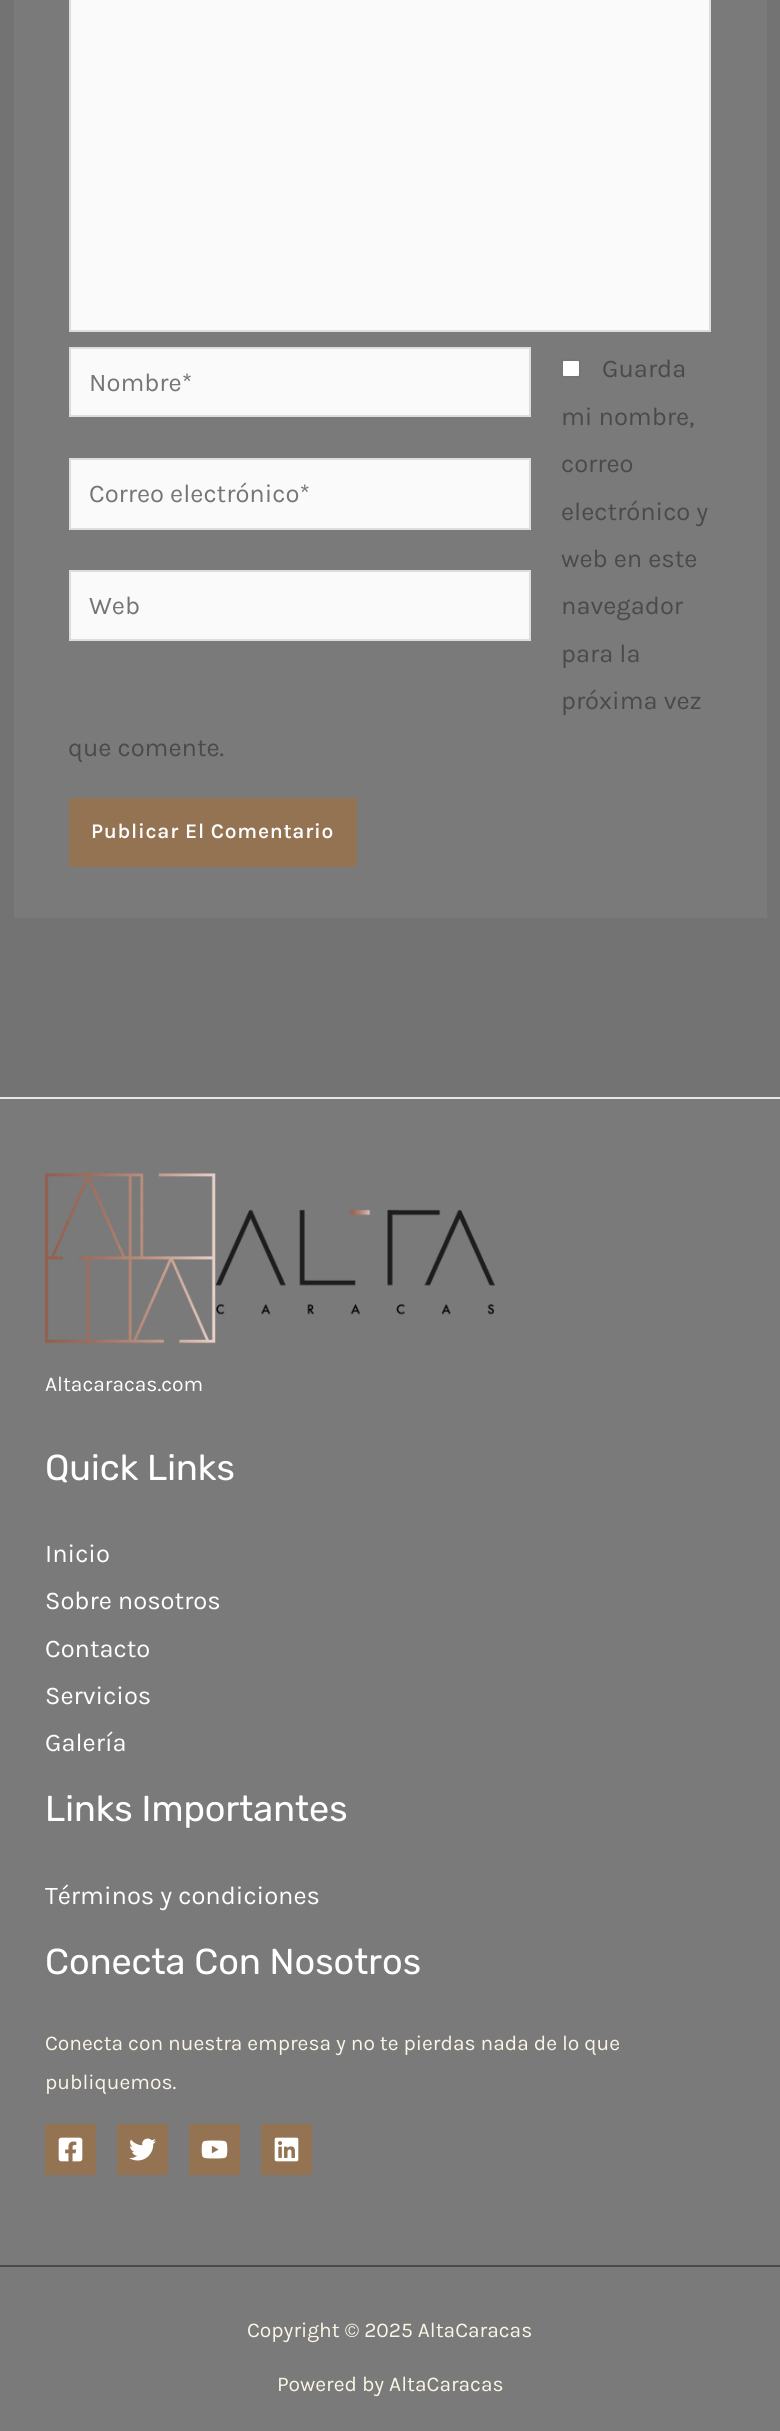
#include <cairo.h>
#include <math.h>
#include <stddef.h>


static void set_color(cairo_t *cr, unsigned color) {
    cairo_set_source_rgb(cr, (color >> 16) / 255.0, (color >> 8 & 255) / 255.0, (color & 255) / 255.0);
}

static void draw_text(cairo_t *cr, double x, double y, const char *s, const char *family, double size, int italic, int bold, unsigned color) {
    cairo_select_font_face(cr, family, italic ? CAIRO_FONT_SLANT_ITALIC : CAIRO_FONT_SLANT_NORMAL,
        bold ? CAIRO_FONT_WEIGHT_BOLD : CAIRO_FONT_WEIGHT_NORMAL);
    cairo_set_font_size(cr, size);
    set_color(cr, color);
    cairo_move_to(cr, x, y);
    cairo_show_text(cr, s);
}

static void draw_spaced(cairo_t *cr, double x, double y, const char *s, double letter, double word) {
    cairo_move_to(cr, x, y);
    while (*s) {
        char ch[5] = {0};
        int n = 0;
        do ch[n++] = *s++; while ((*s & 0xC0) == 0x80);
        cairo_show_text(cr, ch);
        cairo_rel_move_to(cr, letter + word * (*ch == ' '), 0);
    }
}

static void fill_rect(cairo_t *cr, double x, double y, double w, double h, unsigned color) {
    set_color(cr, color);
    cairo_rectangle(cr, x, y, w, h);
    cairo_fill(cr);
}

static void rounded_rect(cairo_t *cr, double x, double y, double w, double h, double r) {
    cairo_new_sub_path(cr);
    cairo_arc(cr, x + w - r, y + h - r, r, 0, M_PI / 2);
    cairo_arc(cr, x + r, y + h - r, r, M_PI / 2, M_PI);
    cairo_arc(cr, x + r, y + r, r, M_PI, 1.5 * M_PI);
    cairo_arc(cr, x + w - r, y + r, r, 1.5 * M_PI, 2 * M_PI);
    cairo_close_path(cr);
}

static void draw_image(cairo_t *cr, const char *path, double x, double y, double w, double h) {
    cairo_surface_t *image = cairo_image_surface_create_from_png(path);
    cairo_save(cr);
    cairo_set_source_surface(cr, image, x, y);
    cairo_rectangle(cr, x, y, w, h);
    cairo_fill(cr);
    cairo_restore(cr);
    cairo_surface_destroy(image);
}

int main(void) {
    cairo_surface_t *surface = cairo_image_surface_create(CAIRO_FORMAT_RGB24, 780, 2431);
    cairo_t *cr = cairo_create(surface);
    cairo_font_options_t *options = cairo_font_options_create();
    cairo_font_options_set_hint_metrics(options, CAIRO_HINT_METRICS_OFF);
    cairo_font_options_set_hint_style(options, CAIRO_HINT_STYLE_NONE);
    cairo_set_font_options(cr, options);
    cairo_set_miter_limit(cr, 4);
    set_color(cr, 0x737373);
    cairo_paint(cr);
    fill_rect(cr, 14, 0, 753, 918, 0x7A7A7A);
    set_color(cr, 0xFAFAFA);
    cairo_rectangle(cr, 70, -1, 640, 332);
    cairo_fill_preserve(cr);
    set_color(cr, 0xDDDDDD);
    cairo_stroke(cr);
    set_color(cr, 0xFFFFFF);
    rounded_rect(cr, 562, 360, 18, 17, 2);
    cairo_fill_preserve(cr);
    set_color(cr, 0x767676);
    cairo_stroke(cr);
    draw_text(cr, 602, 377, "Guarda", "Karla", 25.5, 0, 0, 0x4A4A4A);
    draw_text(cr, 561, 425, "mi nombre,", "Karla", 25.5, 0, 0, 0x4A4A4A);
    draw_text(cr, 561, 472, "correo", "Karla", 25.5, 0, 0, 0x4A4A4A);
    draw_text(cr, 561, 520, "electrónico y", "Karla", 25.5, 0, 0, 0x4A4A4A);
    draw_text(cr, 561, 567, "web en este", "Karla", 25.5, 0, 0, 0x4A4A4A);
    draw_text(cr, 561, 614, "navegador", "Karla", 25.5, 0, 0, 0x4A4A4A);
    draw_text(cr, 561, 662, "para la", "Karla", 25.5, 0, 0, 0x4A4A4A);
    draw_text(cr, 561, 709, "próxima vez", "Karla", 25.5, 0, 0, 0x4A4A4A);
    draw_text(cr, 68, 756, "que comente.", "Karla", 25.5, 0, 0, 0x4A4A4A);
    set_color(cr, 0xFAFAFA);
    cairo_rectangle(cr, 70, 348, 460, 68);
    cairo_fill_preserve(cr);
    set_color(cr, 0xDDDDDD);
    cairo_stroke(cr);
    draw_text(cr, 89, 391, "Nombre*", "Karla", 25.5, 0, 0, 0x757575);
    set_color(cr, 0xFAFAFA);
    cairo_rectangle(cr, 70, 459, 460, 70);
    cairo_fill_preserve(cr);
    set_color(cr, 0xDDDDDD);
    cairo_stroke(cr);
    draw_text(cr, 89, 502, "Correo electrónico*", "Karla", 25.5, 0, 0, 0x757575);
    set_color(cr, 0xFAFAFA);
    cairo_rectangle(cr, 70, 571, 460, 69);
    cairo_fill_preserve(cr);
    set_color(cr, 0xDDDDDD);
    cairo_stroke(cr);
    draw_text(cr, 89, 614, "Web", "Karla", 25.5, 0, 0, 0x757575);
    set_color(cr, 0x937352);
    rounded_rect(cr, 69, 798, 288, 69, 3);
    cairo_fill(cr);
    cairo_select_font_face(cr, "Karla SemiBold", CAIRO_FONT_SLANT_NORMAL, CAIRO_FONT_WEIGHT_NORMAL);
    cairo_set_font_size(cr, 21);
    set_color(cr, 0xFFFFFF);
    draw_spaced(cr, 91, 838, "Publicar El Comentario", 0.75, 0);
    fill_rect(cr, 0, 1099, 780, 1332, 0x7A7A7A);
    fill_rect(cr, 0, 1097, 780, 2, 0xE6E6E6);
    draw_image(cr, "assets/img1.png", 45, 1173, 450, 171);
    draw_text(cr, 45, 1391, "Altacaracas.com", "Karla", 21, 0, 0, 0xFFFFFF);
    draw_text(cr, 45, 1480, "Quick Links", "Rubik", 36, 0, 0, 0xFFFFFF);
    draw_text(cr, 45, 1562, "Inicio", "Karla", 25.5, 0, 0, 0xFFFFFF);
    draw_text(cr, 45, 1609, "Sobre nosotros", "Karla", 25.5, 0, 0, 0xFFFFFF);
    draw_text(cr, 45, 1657, "Contacto", "Karla", 25.5, 0, 0, 0xFFFFFF);
    draw_text(cr, 45, 1704, "Servicios", "Karla", 25.5, 0, 0, 0xFFFFFF);
    draw_text(cr, 45, 1751, "Galería", "Karla", 25.5, 0, 0, 0xFFFFFF);
    draw_text(cr, 45, 1821, "Links Importantes", "Rubik", 36, 0, 0, 0xFFFFFF);
    draw_text(cr, 45, 1904, "Términos y condiciones", "Karla", 25.5, 0, 0, 0xFFFFFF);
    draw_text(cr, 45, 1974, "Conecta Con Nosotros", "Rubik", 36, 0, 0, 0xFFFFFF);
    draw_text(cr, 45, 2050, "Conecta con nuestra empresa y no te pierdas nada de lo que", "Karla", 21, 0, 0, 0xFAF5E5);
    draw_text(cr, 45, 2089, "publiquemos.", "Karla", 21, 0, 0, 0xFAF5E5);
    fill_rect(cr, 45, 2124, 51, 51, 0x937352);
    draw_image(cr, "assets/img2.png", 58, 2137, 25, 25);
    fill_rect(cr, 117, 2124, 51, 51, 0x937352);
    draw_image(cr, "assets/img3.png", 129, 2138, 27, 23);
    fill_rect(cr, 189, 2124, 51, 51, 0x937352);
    draw_image(cr, "assets/img4.png", 201, 2140, 27, 19);
    fill_rect(cr, 261, 2124, 51, 51, 0x937352);
    draw_image(cr, "assets/img5.png", 274, 2137, 25, 25);
    fill_rect(cr, 0, 2265, 780, 2, 0x4A4A4A);
    draw_text(cr, 247, 2337, "Copyright © 2025 AltaCaracas", "Karla", 21, 0, 0, 0xFAF5E5);
    draw_text(cr, 277, 2391, "Powered by AltaCaracas", "Karla", 21, 0, 0, 0xFAF5E5);
    cairo_surface_write_to_png(surface, "output.png");
    cairo_font_options_destroy(options);
    cairo_destroy(cr);
    cairo_surface_destroy(surface);
    return 0;
}
